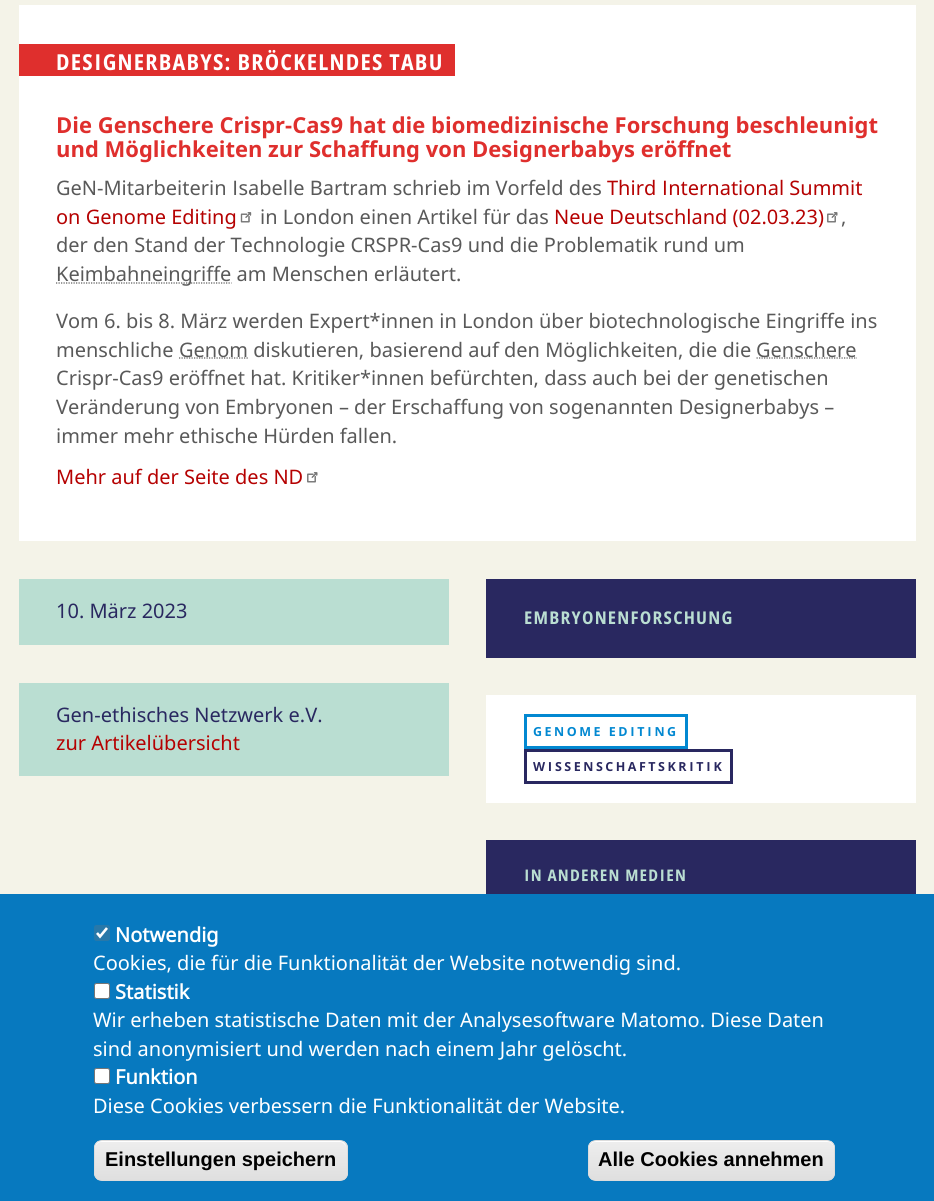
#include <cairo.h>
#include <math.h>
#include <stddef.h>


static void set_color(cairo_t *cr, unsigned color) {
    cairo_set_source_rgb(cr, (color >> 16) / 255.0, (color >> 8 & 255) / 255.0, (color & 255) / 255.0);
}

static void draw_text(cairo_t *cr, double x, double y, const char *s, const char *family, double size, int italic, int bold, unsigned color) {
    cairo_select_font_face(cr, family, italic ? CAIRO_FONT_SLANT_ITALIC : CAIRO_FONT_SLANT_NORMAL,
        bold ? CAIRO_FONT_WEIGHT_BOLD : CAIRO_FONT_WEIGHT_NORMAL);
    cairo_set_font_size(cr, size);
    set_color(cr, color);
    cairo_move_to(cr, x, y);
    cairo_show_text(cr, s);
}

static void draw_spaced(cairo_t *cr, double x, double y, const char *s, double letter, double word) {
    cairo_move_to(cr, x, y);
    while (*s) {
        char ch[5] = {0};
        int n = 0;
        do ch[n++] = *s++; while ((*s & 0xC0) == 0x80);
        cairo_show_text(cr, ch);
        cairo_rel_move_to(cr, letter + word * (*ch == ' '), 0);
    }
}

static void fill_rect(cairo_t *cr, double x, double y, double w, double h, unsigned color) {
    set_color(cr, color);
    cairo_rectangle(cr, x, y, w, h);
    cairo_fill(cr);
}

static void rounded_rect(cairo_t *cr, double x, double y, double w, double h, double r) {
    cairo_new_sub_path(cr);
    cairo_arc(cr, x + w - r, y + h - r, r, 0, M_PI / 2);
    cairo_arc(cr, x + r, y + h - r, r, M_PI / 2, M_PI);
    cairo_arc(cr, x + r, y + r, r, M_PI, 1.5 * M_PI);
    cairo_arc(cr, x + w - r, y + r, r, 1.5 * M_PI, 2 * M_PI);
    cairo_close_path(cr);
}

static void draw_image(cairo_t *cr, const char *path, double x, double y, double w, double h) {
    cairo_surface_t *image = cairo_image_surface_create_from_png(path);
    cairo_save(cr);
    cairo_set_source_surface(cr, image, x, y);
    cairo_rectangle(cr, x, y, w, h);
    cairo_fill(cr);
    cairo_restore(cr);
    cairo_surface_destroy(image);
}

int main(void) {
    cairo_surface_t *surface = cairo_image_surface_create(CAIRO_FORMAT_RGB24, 934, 1201);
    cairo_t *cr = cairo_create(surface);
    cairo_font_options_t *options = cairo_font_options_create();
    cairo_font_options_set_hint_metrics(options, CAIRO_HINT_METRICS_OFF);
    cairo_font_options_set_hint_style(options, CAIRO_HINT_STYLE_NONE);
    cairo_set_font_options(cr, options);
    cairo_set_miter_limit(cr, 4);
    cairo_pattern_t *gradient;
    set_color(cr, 0xF4F3E8);
    cairo_paint(cr);
    fill_rect(cr, 19, 5, 897, 536, 0xFFFFFF);
    fill_rect(cr, 19, 44, 436, 32, 0xDF2F2D);
    cairo_select_font_face(cr, "Noto Sans", CAIRO_FONT_SLANT_NORMAL, CAIRO_FONT_WEIGHT_BOLD);
    cairo_set_font_size(cr, 22);
    set_color(cr, 0xFFFFFF);
    draw_spaced(cr, 56, 70, "DESIGNERBABYS: BRÖCKELNDES TABU", 1.25, 0);
    draw_text(cr, 56, 133, "Die Genschere Crispr-Cas9 hat die biomedizinische Forschung beschleunigt", "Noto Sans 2", 22, 0, 1, 0xDF2F2D);
    draw_text(cr, 56, 157, "und Möglichkeiten zur Schaffung von Designerbabys eröffnet", "Noto Sans 2", 22, 0, 1, 0xDF2F2D);
    draw_text(cr, 56, 195, "GeN-Mitarbeiterin Isabelle Bartram schrieb im Vorfeld des", "Noto Sans", 20, 0, 0, 0x595959);
    draw_text(cr, 607, 195, "Third International Summit", "Noto Sans", 20, 0, 0, 0xB50101);
    draw_text(cr, 56, 224, "on Genome Editing", "Noto Sans", 20, 0, 0, 0xB50101);
    draw_image(cr, "assets/img1.png", 240, 212, 12, 11);
    draw_text(cr, 260, 224, "in London einen Artikel für das", "Noto Sans", 20, 0, 0, 0x595959);
    draw_text(cr, 554, 224, "Neue Deutschland (02.03.23)", "Noto Sans", 20, 0, 0, 0xB50101);
    draw_image(cr, "assets/img2.png", 827, 212, 11, 11);
    draw_text(cr, 841, 224, ",", "Noto Sans", 20, 0, 0, 0x595959);
    draw_text(cr, 56, 252, "der den Stand der Technologie CRSPR-Cas9 und die Problematik rund um", "Noto Sans", 20, 0, 0, 0x595959);
    cairo_new_path(cr);
    cairo_move_to(cr, 56, 283);
    cairo_line_to(cr, 231.5, 283);
    cairo_set_line_width(cr, 1.2);
    cairo_set_dash(cr, (double[]){1.25, 1.25}, 2, 0);
    cairo_stroke(cr);
    draw_text(cr, 56, 281, "Keimbahneingriffe am Menschen erläutert.", "Noto Sans", 20, 0, 0, 0x595959);
    draw_text(cr, 56, 328, "Vom 6. bis 8. März werden Expert*innen in London über biotechnologische Eingriffe ins", "Noto Sans", 20, 0, 0, 0x595959);
    draw_text(cr, 56, 357, "menschliche", "Noto Sans", 20, 0, 0, 0x595959);
    cairo_new_path(cr);
    cairo_move_to(cr, 179, 358);
    cairo_line_to(cr, 248, 358);
    cairo_stroke(cr);
    draw_text(cr, 179, 357, "Genom diskutieren, basierend auf den Möglichkeiten, die die", "Noto Sans", 20, 0, 0, 0x595959);
    cairo_new_path(cr);
    cairo_move_to(cr, 756.5, 358);
    cairo_line_to(cr, 857, 358);
    cairo_stroke(cr);
    draw_text(cr, 756, 357, "Genschere", "Noto Sans", 20, 0, 0, 0x595959);
    draw_text(cr, 56, 385, "Crispr-Cas9 eröffnet hat. Kritiker*innen befürchten, dass auch bei der genetischen", "Noto Sans", 20, 0, 0, 0x595959);
    draw_text(cr, 56, 414, "Veränderung von Embryonen – der Erschaffung von sogenannten Designerbabys –", "Noto Sans", 20, 0, 0, 0x595959);
    draw_text(cr, 56, 443, "immer mehr ethische Hürden fallen.", "Noto Sans", 20, 0, 0, 0x595959);
    draw_text(cr, 56, 484, "Mehr auf der Seite des ND", "Noto Sans", 20, 0, 0, 0xB50101);
    draw_image(cr, "assets/img2.png", 307, 472, 11, 11);
    fill_rect(cr, 19, 579, 430, 66, 0xBADED2);
    draw_text(cr, 56, 618, "10. März 2023", "Noto Sans", 20, 0, 0, 0x292860);
    fill_rect(cr, 19, 683, 430, 93, 0xBADED2);
    draw_text(cr, 56, 722, "Gen-ethisches Netzwerk e.V.", "Noto Sans", 20, 0, 0, 0x292860);
    draw_text(cr, 56, 750, "zur Artikelübersicht", "Noto Sans", 20, 0, 0, 0xB50101);
    fill_rect(cr, 486, 579, 430, 79, 0x292860);
    cairo_select_font_face(cr, "Noto Sans", CAIRO_FONT_SLANT_NORMAL, CAIRO_FONT_WEIGHT_BOLD);
    cairo_set_font_size(cr, 17.6);
    set_color(cr, 0xBADED2);
    draw_spaced(cr, 524, 624, "EMBRYONENFORSCHUNG", 1.25, 0);
    fill_rect(cr, 486, 695, 430, 108, 0xFFFFFF);
    cairo_rectangle(cr, 525.5, 715.5, 161, 32);
    set_color(cr, 0x0288D1);
    cairo_set_line_width(cr, 3);
    cairo_set_dash(cr, NULL, 0, 0);
    cairo_stroke(cr);
    cairo_select_font_face(cr, "Noto Sans 2", CAIRO_FONT_SLANT_NORMAL, CAIRO_FONT_WEIGHT_BOLD);
    cairo_set_font_size(cr, 12.5);
    draw_spaced(cr, 533, 736, "GENOME EDITING", 2.5, 0);
    cairo_rectangle(cr, 525.5, 750.5, 206, 32);
    set_color(cr, 0x292860);
    cairo_stroke(cr);
    draw_spaced(cr, 533, 771, "WISSENSCHAFTSKRITIK", 2.5, 0);
    fill_rect(cr, 486, 840, 430, 54, 0x292860);
    cairo_select_font_face(cr, "Noto Sans", CAIRO_FONT_SLANT_NORMAL, CAIRO_FONT_WEIGHT_BOLD);
    cairo_set_font_size(cr, 16);
    set_color(cr, 0xBADED2);
    draw_spaced(cr, 524, 881, "IN ANDEREN MEDIEN", 1.25, 0);
    fill_rect(cr, 0, 894, 934, 307, 0x0779BF);
    set_color(cr, 0x2878A9);
    rounded_rect(cr, 94, 925, 16, 16, 2.5);
    cairo_fill(cr);
    cairo_new_path(cr);
    cairo_move_to(cr, 97, 933);
    cairo_line_to(cr, 100, 936.5);
    cairo_line_to(cr, 107, 928);
    set_color(cr, 0xFFFFFF);
    cairo_set_line_width(cr, 2.6);
    cairo_stroke(cr);
    draw_text(cr, 115, 942, "Notwendig", "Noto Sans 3", 20, 0, 1, 0xFFFFFF);
    draw_text(cr, 93, 970, "Cookies, die für die Funktionalität der Website notwendig sind.", "Noto Sans", 20, 0, 0, 0xFFFFFF);
    rounded_rect(cr, 94.5, 983.5, 15, 15, 2);
    cairo_fill_preserve(cr);
    set_color(cr, 0x767676);
    cairo_set_line_width(cr, 1);
    cairo_stroke(cr);
    draw_text(cr, 115, 999, "Statistik", "Noto Sans 3", 20, 0, 1, 0xFFFFFF);
    draw_text(cr, 93, 1027, "Wir erheben statistische Daten mit der Analysesoftware Matomo. Diese Daten", "Noto Sans", 20, 0, 0, 0xFFFFFF);
    draw_text(cr, 93, 1056, "sind anonymisiert und werden nach einem Jahr gelöscht.", "Noto Sans", 20, 0, 0, 0xFFFFFF);
    rounded_rect(cr, 94.5, 1068.5, 15, 15, 2);
    cairo_fill_preserve(cr);
    set_color(cr, 0x767676);
    cairo_stroke(cr);
    draw_text(cr, 115, 1084, "Funktion", "Noto Sans 3", 20, 0, 1, 0xFFFFFF);
    draw_text(cr, 93, 1113, "Diese Cookies verbessern die Funktionalität der Website.", "Noto Sans", 20, 0, 0, 0xFFFFFF);
    cairo_save(cr);
    rounded_rect(cr, 94, 1140, 254, 41, 8);
    cairo_clip(cr);
    gradient = cairo_pattern_create_linear(221, 1141, 221, 1180);
    cairo_pattern_add_color_stop_rgba(gradient, 0.05, 0.929, 0.929, 0.929, 1);
    cairo_pattern_add_color_stop_rgba(gradient, 1, 0.875, 0.875, 0.875, 1);
    cairo_set_source(cr, gradient);
    cairo_pattern_destroy(gradient);
    cairo_rectangle(cr, 94, 1141, 254, 39);
    cairo_fill(cr);
    cairo_restore(cr);
    cairo_new_path(cr);
    cairo_move_to(cr, 101, 1142);
    cairo_line_to(cr, 340, 1142);
    cairo_curve_to(cr, 343, 1142, 346, 1145, 346, 1149);
    cairo_curve_to(cr, 346, 1146, 345, 1142, 341, 1141);
    cairo_line_to(cr, 101, 1141);
    cairo_curve_to(cr, 96, 1141, 95, 1145, 95, 1149);
    cairo_curve_to(cr, 95, 1145, 98, 1142, 101, 1142);
    cairo_close_path(cr);
    cairo_fill(cr);
    rounded_rect(cr, 94.5, 1140.5, 253, 40, 7.5);
    set_color(cr, 0xDCDCDC);
    cairo_stroke(cr);
    draw_text(cr, 105, 1166, "Einstellungen speichern", "Liberation Sans", 20, 0, 1, 0x000000);
    cairo_save(cr);
    rounded_rect(cr, 588, 1140, 247, 41, 8);
    cairo_clip(cr);
    gradient = cairo_pattern_create_linear(711, 1141, 711, 1180);
    cairo_pattern_add_color_stop_rgba(gradient, 0.05, 0.929, 0.929, 0.929, 1);
    cairo_pattern_add_color_stop_rgba(gradient, 1, 0.875, 0.875, 0.875, 1);
    cairo_set_source(cr, gradient);
    cairo_pattern_destroy(gradient);
    cairo_rectangle(cr, 588, 1141, 247, 39);
    cairo_fill(cr);
    cairo_restore(cr);
    set_color(cr, 0xFFFFFF);
    cairo_new_path(cr);
    cairo_move_to(cr, 595, 1142);
    cairo_line_to(cr, 828, 1142);
    cairo_curve_to(cr, 831, 1142, 834, 1145, 834, 1149);
    cairo_line_to(cr, 834, 1147);
    cairo_curve_to(cr, 834, 1144, 831, 1141, 828, 1141);
    cairo_line_to(cr, 595, 1141);
    cairo_curve_to(cr, 592, 1141, 589, 1144, 589, 1147);
    cairo_line_to(cr, 589, 1149);
    cairo_curve_to(cr, 589, 1145, 592, 1142, 595, 1142);
    cairo_close_path(cr);
    cairo_fill(cr);
    rounded_rect(cr, 588.5, 1140.5, 246, 40, 7.5);
    set_color(cr, 0xDCDCDC);
    cairo_stroke(cr);
    draw_text(cr, 598, 1166, "Alle Cookies annehmen", "Liberation Sans", 20, 0, 1, 0x000000);
    cairo_surface_write_to_png(surface, "output.png");
    cairo_font_options_destroy(options);
    cairo_destroy(cr);
    cairo_surface_destroy(surface);
    return 0;
}
